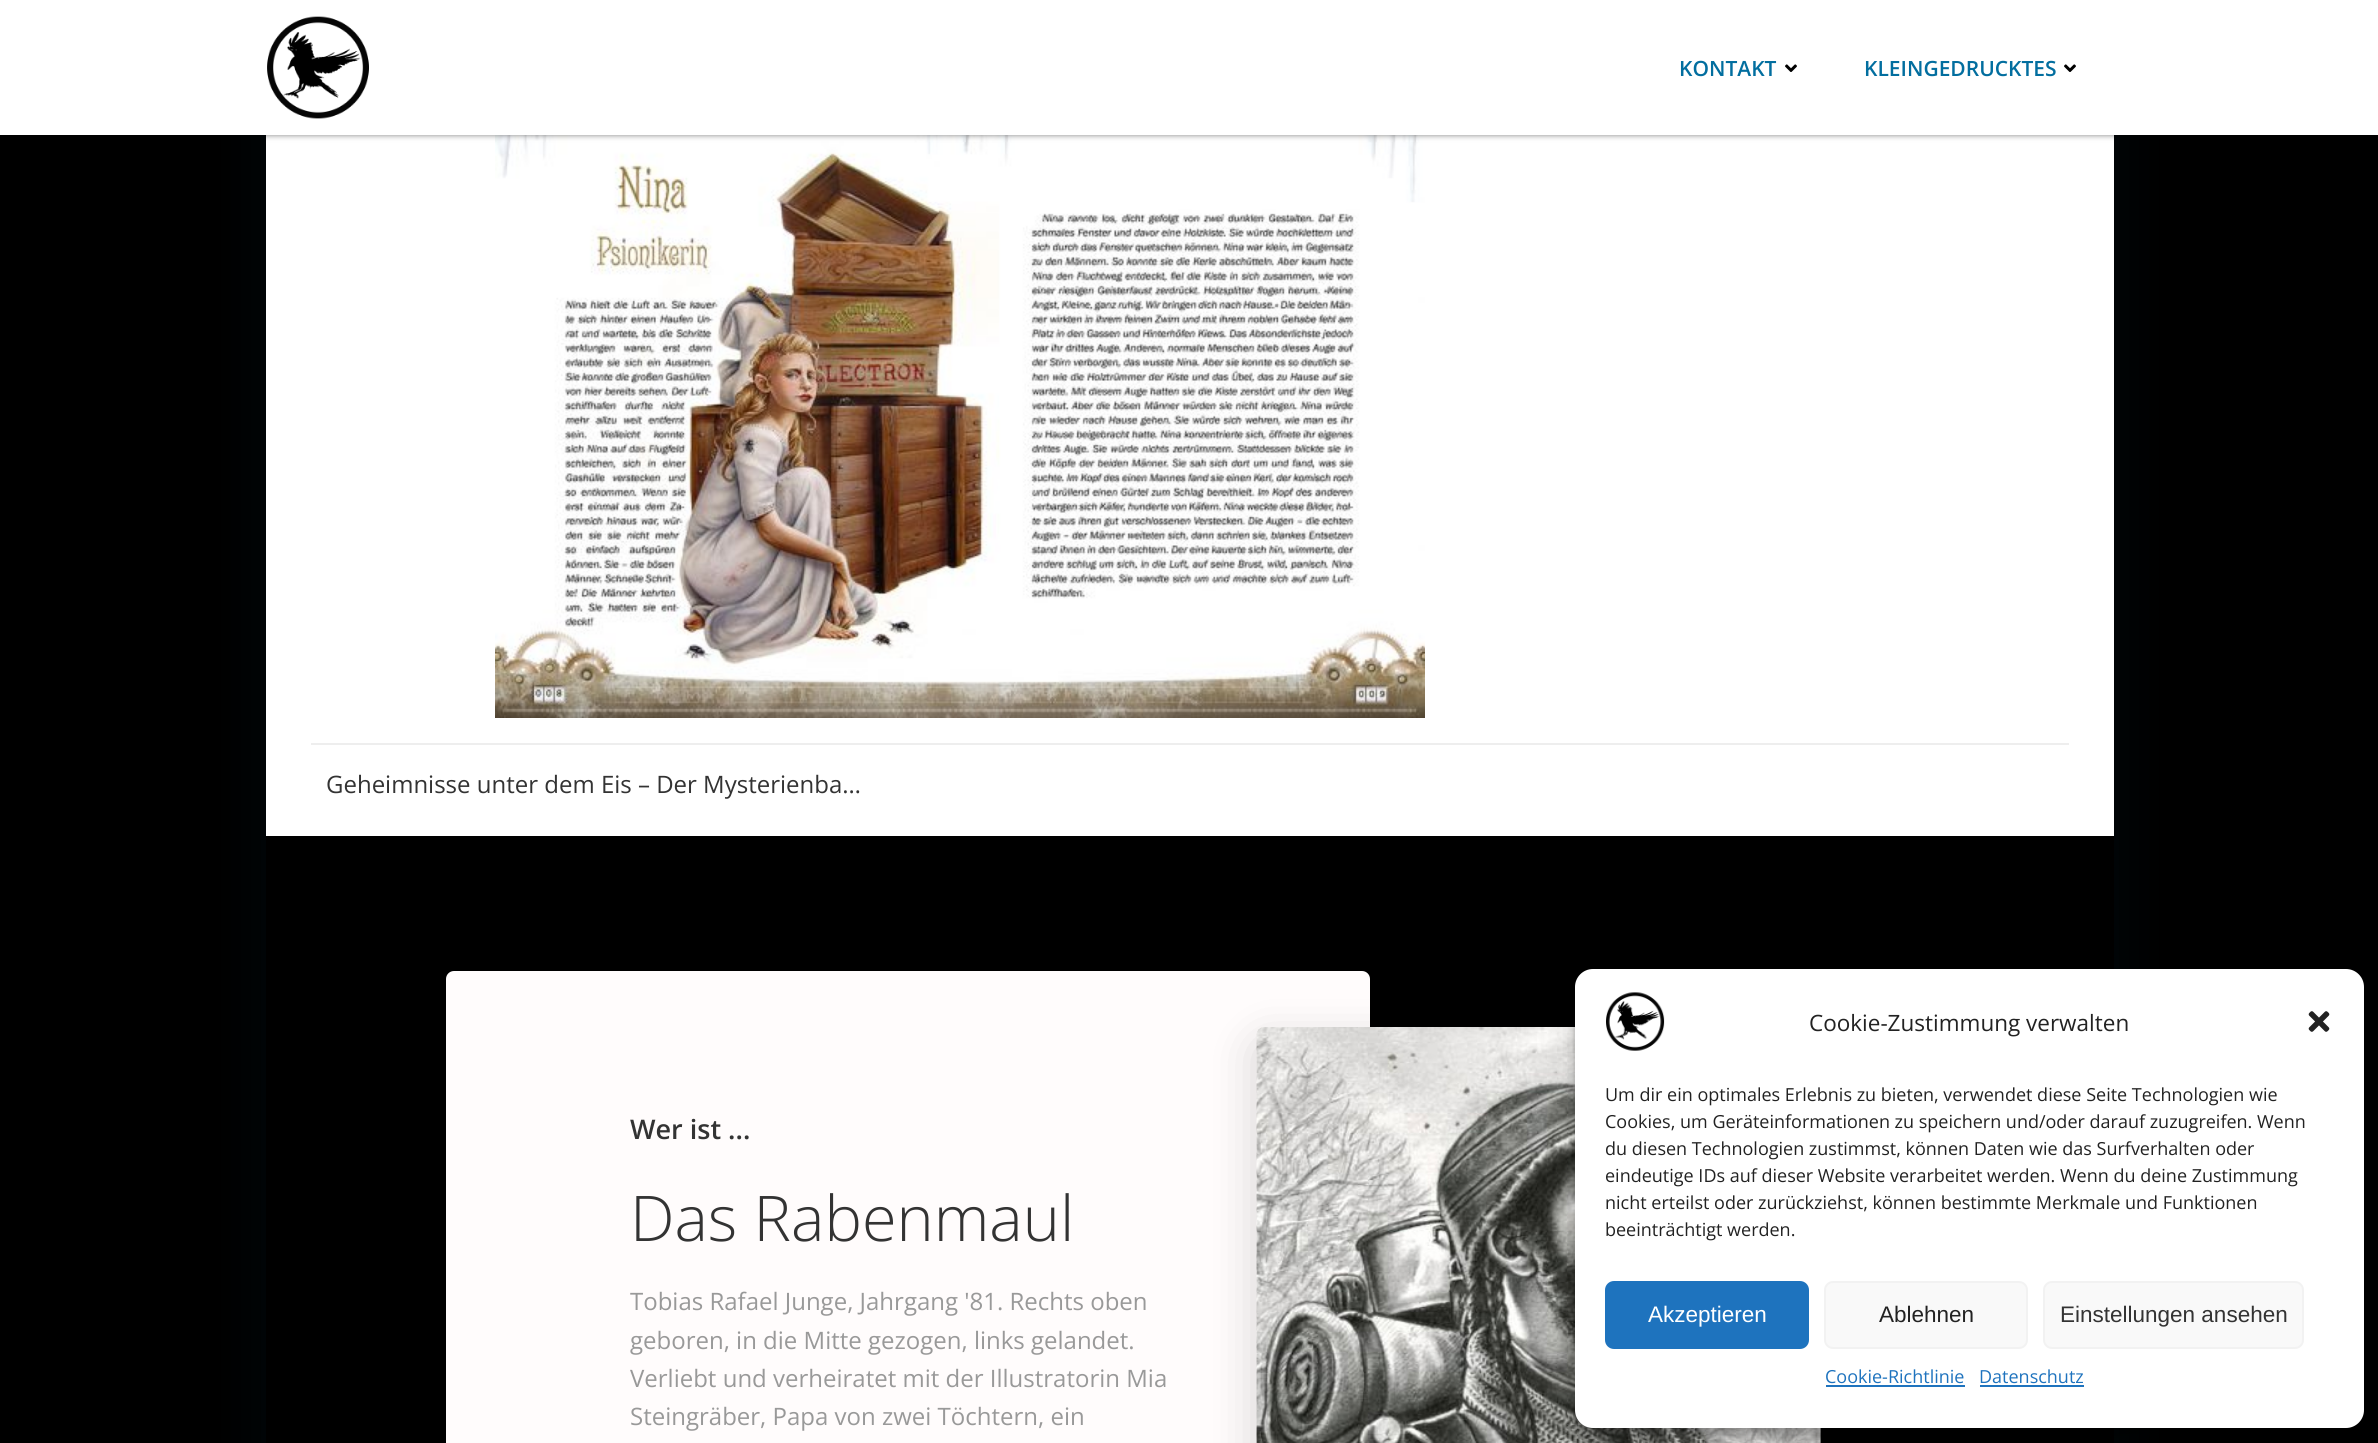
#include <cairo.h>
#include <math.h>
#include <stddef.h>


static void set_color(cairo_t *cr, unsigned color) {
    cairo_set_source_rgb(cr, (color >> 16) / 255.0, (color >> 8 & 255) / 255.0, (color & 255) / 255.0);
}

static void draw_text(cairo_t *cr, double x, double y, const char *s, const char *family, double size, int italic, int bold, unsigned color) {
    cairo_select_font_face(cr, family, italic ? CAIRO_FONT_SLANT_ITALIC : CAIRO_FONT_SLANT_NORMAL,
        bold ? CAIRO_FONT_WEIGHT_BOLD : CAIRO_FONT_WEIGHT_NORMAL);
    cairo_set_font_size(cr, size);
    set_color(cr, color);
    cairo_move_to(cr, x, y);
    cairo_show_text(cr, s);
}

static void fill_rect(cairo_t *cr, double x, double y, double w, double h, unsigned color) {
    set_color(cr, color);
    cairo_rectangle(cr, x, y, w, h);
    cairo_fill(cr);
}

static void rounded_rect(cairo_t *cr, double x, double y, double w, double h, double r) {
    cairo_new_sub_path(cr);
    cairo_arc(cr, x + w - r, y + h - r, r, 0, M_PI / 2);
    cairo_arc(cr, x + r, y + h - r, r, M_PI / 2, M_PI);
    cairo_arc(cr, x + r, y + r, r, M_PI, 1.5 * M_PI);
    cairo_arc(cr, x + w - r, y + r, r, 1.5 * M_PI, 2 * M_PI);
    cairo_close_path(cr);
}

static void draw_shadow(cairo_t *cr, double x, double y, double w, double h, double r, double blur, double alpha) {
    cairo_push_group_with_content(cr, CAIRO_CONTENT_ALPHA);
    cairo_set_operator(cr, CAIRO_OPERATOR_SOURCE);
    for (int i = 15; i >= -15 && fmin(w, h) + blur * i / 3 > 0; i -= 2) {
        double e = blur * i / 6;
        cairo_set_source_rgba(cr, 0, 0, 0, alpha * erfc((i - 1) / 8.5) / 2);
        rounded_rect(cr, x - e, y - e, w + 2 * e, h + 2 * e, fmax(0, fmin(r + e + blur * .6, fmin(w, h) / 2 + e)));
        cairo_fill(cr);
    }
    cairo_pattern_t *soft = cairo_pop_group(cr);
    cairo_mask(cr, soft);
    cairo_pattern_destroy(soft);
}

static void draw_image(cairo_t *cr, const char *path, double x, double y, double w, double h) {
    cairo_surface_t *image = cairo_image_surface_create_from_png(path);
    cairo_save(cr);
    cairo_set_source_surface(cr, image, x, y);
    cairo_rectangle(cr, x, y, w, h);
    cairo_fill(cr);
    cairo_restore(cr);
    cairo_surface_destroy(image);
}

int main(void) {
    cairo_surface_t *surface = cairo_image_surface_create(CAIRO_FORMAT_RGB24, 2378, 1443);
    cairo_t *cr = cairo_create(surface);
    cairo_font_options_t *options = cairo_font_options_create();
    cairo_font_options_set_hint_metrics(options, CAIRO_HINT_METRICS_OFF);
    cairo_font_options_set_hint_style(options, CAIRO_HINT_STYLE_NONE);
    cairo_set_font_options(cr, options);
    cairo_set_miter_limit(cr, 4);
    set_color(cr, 0x000000);
    cairo_paint(cr);
    set_color(cr, 0x01334A);
    draw_shadow(cr, 266, -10, 1848, 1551, 8, 30, 0.15);
    fill_rect(cr, 266, 135, 1848, 701, 0xFFFFFF);
    draw_image(cr, "assets/img3.png", 495, 135, 930, 583);
    set_color(cr, 0x000000);
    draw_shadow(cr, 0, 0, 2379, 135, 0, 3, 0.5);
    fill_rect(cr, 0, 0, 2378, 135, 0xFFFFFF);
    draw_image(cr, "assets/img1.png", 267, 16, 102, 103);
    draw_text(cr, 1679, 76, "KONTAKT", "Open Sans SemiBold", 21, 0, 0, 0x026E9F);
    draw_image(cr, "assets/img2.png", 1785, 64, 12, 8);
    draw_text(cr, 1864, 76, "KLEINGEDRUCKTES", "Open Sans SemiBold", 21, 0, 0, 0x026E9F);
    draw_image(cr, "assets/img2.png", 2064, 64, 12, 8);
    fill_rect(cr, 311, 743, 1758, 2, 0xEEEEEE);
    draw_text(cr, 326, 793, "Geheimnisse unter dem Eis – Der Mysterienba…", "Open Sans", 24, 0, 0, 0x333333);
    fill_rect(cr, 266, 836, 1848, 607, 0x000000);
    set_color(cr, 0xFFFCFC);
    rounded_rect(cr, 446, 971, 924, 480, 8);
    cairo_fill(cr);
    draw_text(cr, 630, 1139, "Wer ist ...", "Open Sans SemiBold", 27, 0, 0, 0x333333);
    draw_text(cr, 630, 1241, "Das Rabenmaul", "Open Sans Light", 63, 0, 0, 0x333333);
    draw_text(cr, 630, 1310, "Tobias Rafael Junge, Jahrgang '81. Rechts oben", "Open Sans", 24, 0, 0, 0x999999);
    draw_text(cr, 630, 1349, "geboren, in die Mitte gezogen, links gelandet.", "Open Sans", 24, 0, 0, 0x999999);
    draw_text(cr, 630, 1387, "Verliebt und verheiratet mit der Illustratorin Mia", "Open Sans", 24, 0, 0, 0x999999);
    draw_text(cr, 630, 1425, "Steingräber, Papa von zwei Töchtern, ein", "Open Sans", 24, 0, 0, 0x999999);
    set_color(cr, 0x000000);
    draw_shadow(cr, 1254, 1040, 570, 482, 11, 22.5, 0.15);
    draw_image(cr, "assets/img4.png", 1256, 1027, 565, 416);
    draw_shadow(cr, 1575, 978, 789, 459, 18, 4.5, 0.23);
    draw_shadow(cr, 1575, 984, 789, 459, 18, 15, 0.19);
    set_color(cr, 0xFFFFFF);
    rounded_rect(cr, 1575, 969, 789, 459, 18);
    cairo_fill(cr);
    draw_image(cr, "assets/img5.png", 1606, 992, 59, 59);
    draw_text(cr, 1809, 1031, "Cookie-Zustimmung verwalten", "Open Sans", 22.5, 0, 0, 0x222222);
    draw_image(cr, "assets/img6.png", 2308, 1011, 22, 21);
    draw_text(cr, 1605, 1101, "Um dir ein optimales Erlebnis zu bieten, verwendet diese Seite Technologien wie", "Open Sans", 18, 0, 0, 0x222222);
    draw_text(cr, 1605, 1128, "Cookies, um Geräteinformationen zu speichern und/oder darauf zuzugreifen. Wenn", "Open Sans", 18, 0, 0, 0x222222);
    draw_text(cr, 1605, 1155, "du diesen Technologien zustimmst, können Daten wie das Surfverhalten oder", "Open Sans", 18, 0, 0, 0x222222);
    draw_text(cr, 1605, 1182, "eindeutige IDs auf dieser Website verarbeitet werden. Wenn du deine Zustimmung", "Open Sans", 18, 0, 0, 0x222222);
    draw_text(cr, 1605, 1209, "nicht erteilst oder zurückziehst, können bestimmte Merkmale und Funktionen", "Open Sans", 18, 0, 0, 0x222222);
    draw_text(cr, 1605, 1236, "beeinträchtigt werden.", "Open Sans", 18, 0, 0, 0x222222);
    set_color(cr, 0x1E73BE);
    rounded_rect(cr, 1606, 1282, 202, 66, 8);
    cairo_fill_preserve(cr);
    cairo_stroke(cr);
    draw_text(cr, 1648, 1322, "Akzeptieren", "Liberation Sans", 22.5, 0, 0, 0xFFFFFF);
    set_color(cr, 0xF9F9F9);
    rounded_rect(cr, 1825, 1282, 202, 66, 8);
    cairo_fill_preserve(cr);
    set_color(cr, 0xF2F2F2);
    cairo_stroke(cr);
    draw_text(cr, 1879, 1322, "Ablehnen", "Liberation Sans", 22.5, 0, 0, 0x222222);
    set_color(cr, 0xF9F9F9);
    rounded_rect(cr, 2044, 1282, 259, 66, 8);
    cairo_fill_preserve(cr);
    set_color(cr, 0xF2F2F2);
    cairo_stroke(cr);
    draw_text(cr, 2060, 1322, "Einstellungen ansehen", "Liberation Sans", 22.5, 0, 0, 0x333333);
    draw_text(cr, 1825, 1383, "Cookie-Richtlinie", "Open Sans", 18, 0, 0, 0x1E73BE);
    fill_rect(cr, 1826, 1385, 139, 2, 0x1E73BE);
    draw_text(cr, 1979, 1383, "Datenschutz", "Open Sans", 18, 0, 0, 0x1E73BE);
    fill_rect(cr, 1980, 1385, 104, 2, 0x1E73BE);
    cairo_surface_write_to_png(surface, "output.png");
    cairo_font_options_destroy(options);
    cairo_destroy(cr);
    cairo_surface_destroy(surface);
    return 0;
}
